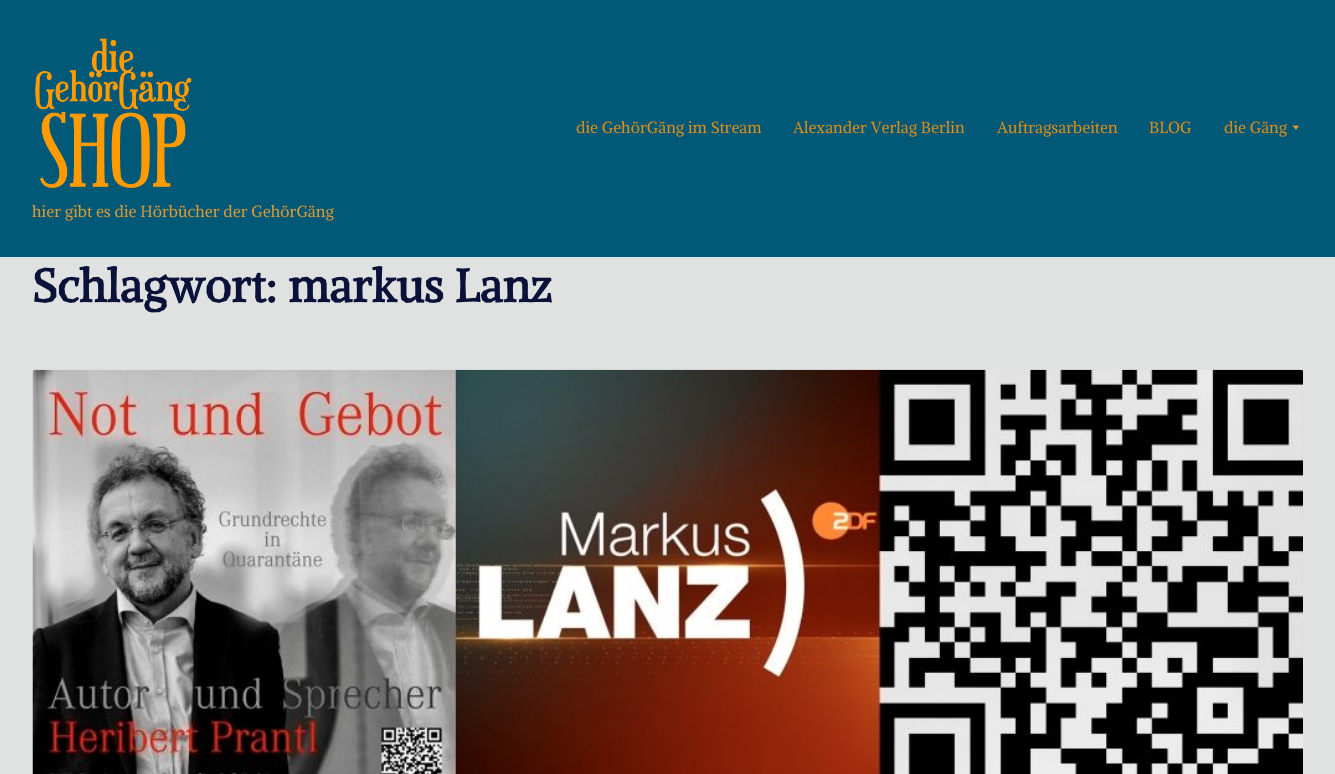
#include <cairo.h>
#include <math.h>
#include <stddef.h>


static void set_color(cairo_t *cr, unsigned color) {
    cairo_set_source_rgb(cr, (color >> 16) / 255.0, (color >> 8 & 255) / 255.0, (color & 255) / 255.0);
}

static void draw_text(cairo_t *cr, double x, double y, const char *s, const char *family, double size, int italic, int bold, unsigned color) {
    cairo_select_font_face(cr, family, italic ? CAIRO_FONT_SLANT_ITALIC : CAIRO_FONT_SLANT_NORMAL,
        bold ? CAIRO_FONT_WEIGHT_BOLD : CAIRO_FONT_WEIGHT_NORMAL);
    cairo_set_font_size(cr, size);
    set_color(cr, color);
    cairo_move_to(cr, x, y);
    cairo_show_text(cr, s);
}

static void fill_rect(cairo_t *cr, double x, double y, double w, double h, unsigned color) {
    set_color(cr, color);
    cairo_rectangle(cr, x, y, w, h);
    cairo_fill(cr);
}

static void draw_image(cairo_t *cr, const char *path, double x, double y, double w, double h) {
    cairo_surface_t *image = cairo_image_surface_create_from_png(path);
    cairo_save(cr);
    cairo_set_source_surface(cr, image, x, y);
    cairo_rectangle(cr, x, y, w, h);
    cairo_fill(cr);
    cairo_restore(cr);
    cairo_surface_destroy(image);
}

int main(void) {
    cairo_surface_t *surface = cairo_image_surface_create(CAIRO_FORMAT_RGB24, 1335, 774);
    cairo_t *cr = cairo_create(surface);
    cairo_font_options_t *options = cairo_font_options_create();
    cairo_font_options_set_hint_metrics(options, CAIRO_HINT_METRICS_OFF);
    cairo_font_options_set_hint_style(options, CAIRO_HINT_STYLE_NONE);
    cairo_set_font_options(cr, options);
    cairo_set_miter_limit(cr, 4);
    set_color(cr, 0xE0E2E2);
    cairo_paint(cr);
    fill_rect(cr, 0, 0, 1335, 257, 0x015877);
    draw_text(cr, 576, 133, "die GehörGäng im Stream", "Alike Angular", 16, 0, 0, 0xDD8E18);
    draw_text(cr, 793, 133, "Alexander Verlag Berlin", "Alike Angular", 16, 0, 0, 0xDD8E18);
    draw_text(cr, 997, 133, "Auftragsarbeiten", "Alike Angular", 16, 0, 0, 0xDD8E18);
    draw_text(cr, 1149, 133, "BLOG", "Alike Angular", 16, 0, 0, 0xDD8E18);
    draw_text(cr, 1224, 133, "die Gäng", "Alike Angular", 16, 0, 0, 0xDD8E18);
    set_color(cr, 0xDD9933);
    cairo_new_path(cr);
    cairo_move_to(cr, 1299, 125.5);
    cairo_line_to(cr, 1296, 130);
    cairo_line_to(cr, 1292.5, 125.5);
    cairo_close_path(cr);
    cairo_fill(cr);
    draw_image(cr, "assets/img1.png", 35, 38, 157, 150);
    draw_text(cr, 32, 217, "hier gibt es die Hörbücher der GehörGäng", "Alike Angular", 16, 0, 0, 0xDD9933);
    draw_text(cr, 32, 302, "Schlagwort: markus Lanz", "Alike Angular", 46, 0, 1, 0x0B123A);
    draw_image(cr, "assets/img2.png", 32, 369, 1271, 405);
    cairo_surface_write_to_png(surface, "output.png");
    cairo_font_options_destroy(options);
    cairo_destroy(cr);
    cairo_surface_destroy(surface);
    return 0;
}
